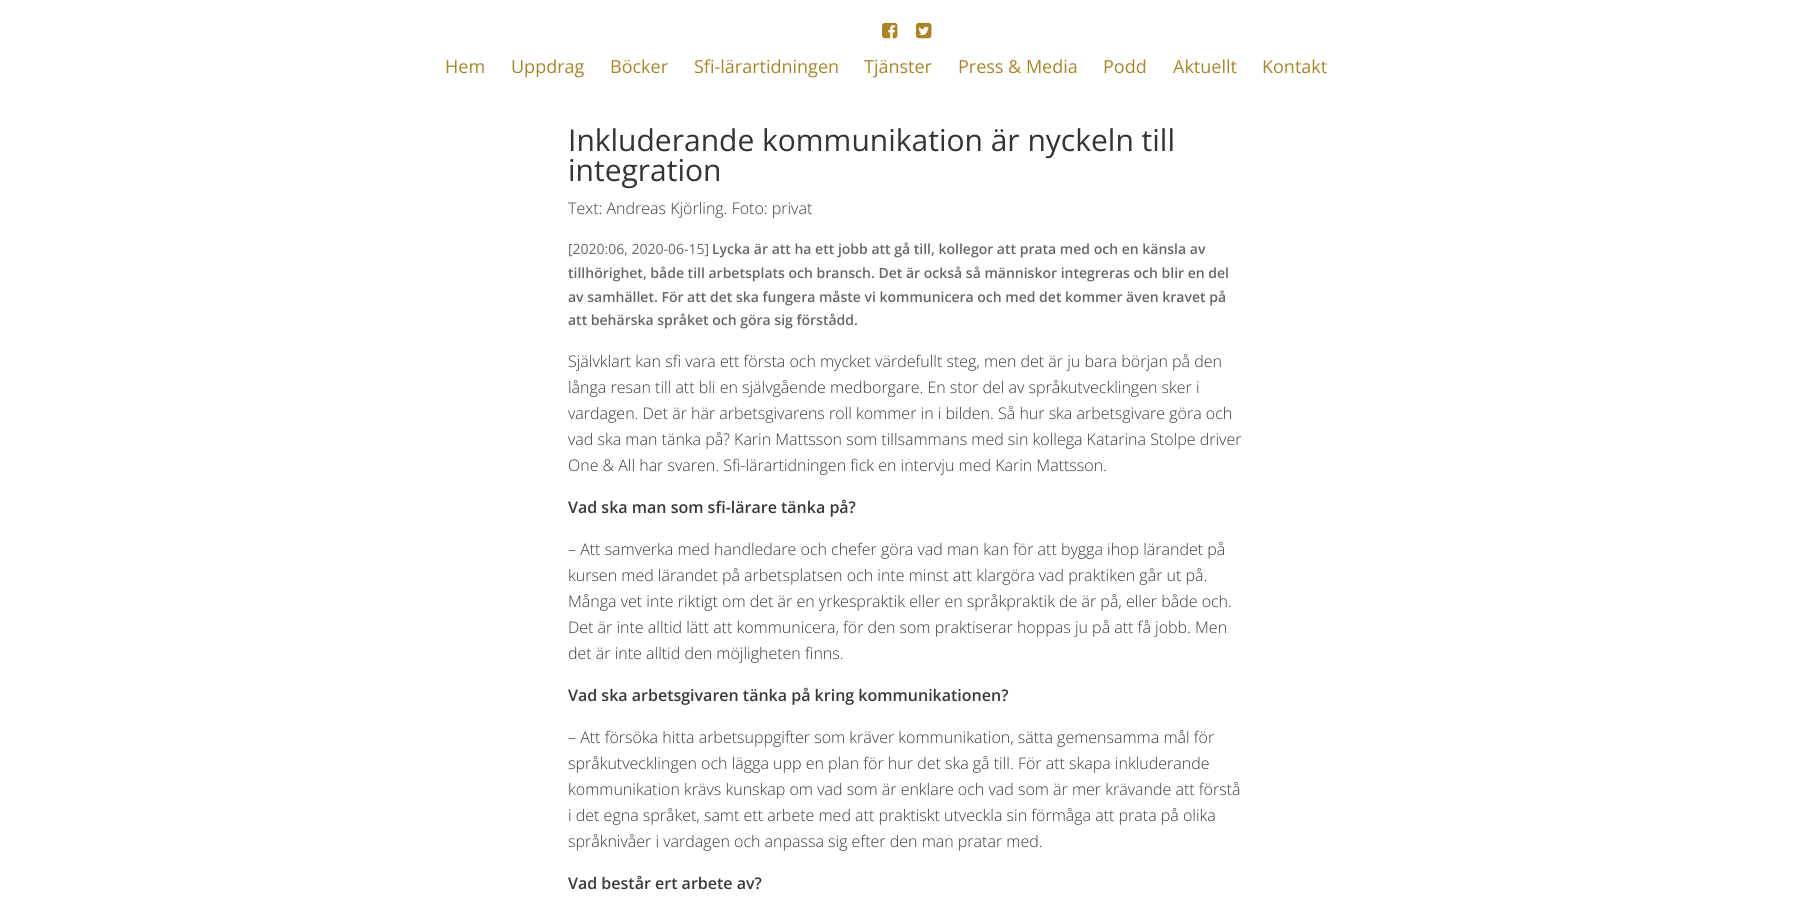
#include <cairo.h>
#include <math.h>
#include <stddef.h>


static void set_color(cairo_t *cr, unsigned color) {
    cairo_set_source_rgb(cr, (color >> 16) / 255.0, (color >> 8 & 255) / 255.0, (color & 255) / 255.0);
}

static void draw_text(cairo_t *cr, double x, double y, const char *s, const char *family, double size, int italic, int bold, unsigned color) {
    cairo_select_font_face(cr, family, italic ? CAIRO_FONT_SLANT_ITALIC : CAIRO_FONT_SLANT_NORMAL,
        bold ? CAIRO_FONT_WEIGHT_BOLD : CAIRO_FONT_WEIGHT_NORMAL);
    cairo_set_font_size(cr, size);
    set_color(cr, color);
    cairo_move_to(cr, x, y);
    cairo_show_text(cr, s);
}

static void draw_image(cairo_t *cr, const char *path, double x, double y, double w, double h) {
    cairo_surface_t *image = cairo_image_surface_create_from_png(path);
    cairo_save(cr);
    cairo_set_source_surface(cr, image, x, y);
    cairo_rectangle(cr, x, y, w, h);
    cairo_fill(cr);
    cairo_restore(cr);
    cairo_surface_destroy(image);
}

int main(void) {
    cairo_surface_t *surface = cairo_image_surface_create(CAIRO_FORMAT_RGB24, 1813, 897);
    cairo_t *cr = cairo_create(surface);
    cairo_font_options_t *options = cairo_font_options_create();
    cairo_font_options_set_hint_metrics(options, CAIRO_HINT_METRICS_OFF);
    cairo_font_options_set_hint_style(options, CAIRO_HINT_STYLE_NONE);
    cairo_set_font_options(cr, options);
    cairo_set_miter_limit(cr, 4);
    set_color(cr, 0xFFFFFF);
    cairo_paint(cr);
    draw_image(cr, "assets/img1.png", 882, 22, 16, 17);
    draw_image(cr, "assets/img2.png", 916, 22, 16, 17);
    draw_text(cr, 445, 73, "Hem", "Open Sans", 18, 0, 0, 0xAA8526);
    draw_text(cr, 511, 73, "Uppdrag", "Open Sans", 18, 0, 0, 0xAA8526);
    draw_text(cr, 610, 73, "Böcker", "Open Sans", 18, 0, 0, 0xAA8526);
    draw_text(cr, 694, 73, "Sfi-lärartidningen", "Open Sans", 18, 0, 0, 0xAA8526);
    draw_text(cr, 864, 73, "Tjänster", "Open Sans", 18, 0, 0, 0xAA8526);
    draw_text(cr, 958, 73, "Press & Media", "Open Sans", 18, 0, 0, 0xAA8526);
    draw_text(cr, 1103, 73, "Podd", "Open Sans", 18, 0, 0, 0xAA8526);
    draw_text(cr, 1173, 73, "Aktuellt", "Open Sans", 18, 0, 0, 0xAA8526);
    draw_text(cr, 1262, 73, "Kontakt", "Open Sans", 18, 0, 0, 0xAA8526);
    draw_text(cr, 568, 151, "Inkluderande kommunikation är nyckeln till", "Open Sans", 30, 0, 0, 0x333333);
    draw_text(cr, 568, 181, "integration", "Open Sans", 30, 0, 0, 0x333333);
    draw_text(cr, 568, 214, "Text: Andreas Kjörling. Foto: privat", "Open Sans Light", 16, 0, 0, 0x3B3935);
    draw_text(cr, 568, 254, "[2020:06, 2020-06-15]", "Open Sans", 14, 0, 0, 0x666666);
    draw_text(cr, 712, 254, "Lycka är att ha ett jobb att gå till, kollegor att prata med och en känsla av", "Open Sans SemiBold", 14, 0, 0, 0x666666);
    draw_text(cr, 568, 278, "tillhörighet, både till arbetsplats och bransch. Det är också så människor integreras och blir en del", "Open Sans SemiBold", 14, 0, 0, 0x666666);
    draw_text(cr, 568, 302, "av samhället. För att det ska fungera måste vi kommunicera och med det kommer även kravet på", "Open Sans SemiBold", 14, 0, 0, 0x666666);
    draw_text(cr, 568, 325, "att behärska språket och göra sig förstådd.", "Open Sans SemiBold", 14, 0, 0, 0x666666);
    draw_text(cr, 568, 367, "Självklart kan sfi vara ett första och mycket värdefullt steg, men det är ju bara början på den", "Open Sans Light", 16, 0, 0, 0x3B3935);
    draw_text(cr, 568, 393, "långa resan till att bli en självgående medborgare. En stor del av språkutvecklingen sker i", "Open Sans Light", 16, 0, 0, 0x3B3935);
    draw_text(cr, 568, 419, "vardagen. Det är här arbetsgivarens roll kommer in i bilden. Så hur ska arbetsgivare göra och", "Open Sans Light", 16, 0, 0, 0x3B3935);
    draw_text(cr, 568, 445, "vad ska man tänka på? Karin Mattsson som tillsammans med sin kollega Katarina Stolpe driver", "Open Sans Light", 16, 0, 0, 0x3B3935);
    draw_text(cr, 568, 471, "One & All har svaren. Sfi-lärartidningen fick en intervju med Karin Mattsson.", "Open Sans Light", 16, 0, 0, 0x3B3935);
    draw_text(cr, 568, 513, "Vad ska man som sfi-lärare tänka på?", "Open Sans SemiBold", 16, 0, 0, 0x3B3935);
    draw_text(cr, 568, 555, "– Att samverka med handledare och chefer göra vad man kan för att bygga ihop lärandet på", "Open Sans Light", 16, 0, 0, 0x3B3935);
    draw_text(cr, 568, 581, "kursen med lärandet på arbetsplatsen och inte minst att klargöra vad praktiken går ut på.", "Open Sans Light", 16, 0, 0, 0x3B3935);
    draw_text(cr, 568, 607, "Många vet inte riktigt om det är en yrkespraktik eller en språkpraktik de är på, eller både och.", "Open Sans Light", 16, 0, 0, 0x3B3935);
    draw_text(cr, 568, 633, "Det är inte alltid lätt att kommunicera, för den som praktiserar hoppas ju på att få jobb. Men", "Open Sans Light", 16, 0, 0, 0x3B3935);
    draw_text(cr, 568, 659, "det är inte alltid den möjligheten finns.", "Open Sans Light", 16, 0, 0, 0x3B3935);
    draw_text(cr, 568, 701, "Vad ska arbetsgivaren tänka på kring kommunikationen?", "Open Sans SemiBold", 16, 0, 0, 0x3B3935);
    draw_text(cr, 568, 743, "– Att försöka hitta arbetsuppgifter som kräver kommunikation, sätta gemensamma mål för", "Open Sans Light", 16, 0, 0, 0x3B3935);
    draw_text(cr, 568, 769, "språkutvecklingen och lägga upp en plan för hur det ska gå till. För att skapa inkluderande", "Open Sans Light", 16, 0, 0, 0x3B3935);
    draw_text(cr, 568, 795, "kommunikation krävs kunskap om vad som är enklare och vad som är mer krävande att förstå", "Open Sans Light", 16, 0, 0, 0x3B3935);
    draw_text(cr, 568, 821, "i det egna språket, samt ett arbete med att praktiskt utveckla sin förmåga att prata på olika", "Open Sans Light", 16, 0, 0, 0x3B3935);
    draw_text(cr, 568, 847, "språknivåer i vardagen och anpassa sig efter den man pratar med.", "Open Sans Light", 16, 0, 0, 0x3B3935);
    draw_text(cr, 568, 889, "Vad består ert arbete av?", "Open Sans SemiBold", 16, 0, 0, 0x3B3935);
    cairo_surface_write_to_png(surface, "output.png");
    cairo_font_options_destroy(options);
    cairo_destroy(cr);
    cairo_surface_destroy(surface);
    return 0;
}
